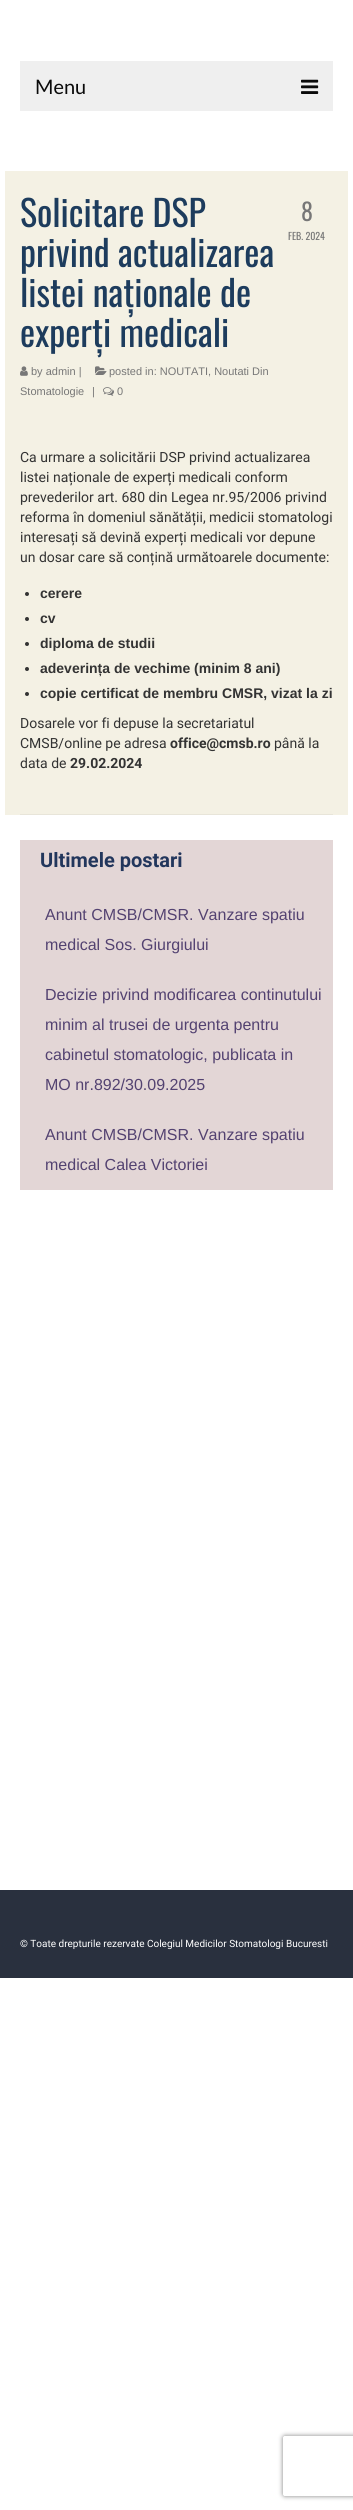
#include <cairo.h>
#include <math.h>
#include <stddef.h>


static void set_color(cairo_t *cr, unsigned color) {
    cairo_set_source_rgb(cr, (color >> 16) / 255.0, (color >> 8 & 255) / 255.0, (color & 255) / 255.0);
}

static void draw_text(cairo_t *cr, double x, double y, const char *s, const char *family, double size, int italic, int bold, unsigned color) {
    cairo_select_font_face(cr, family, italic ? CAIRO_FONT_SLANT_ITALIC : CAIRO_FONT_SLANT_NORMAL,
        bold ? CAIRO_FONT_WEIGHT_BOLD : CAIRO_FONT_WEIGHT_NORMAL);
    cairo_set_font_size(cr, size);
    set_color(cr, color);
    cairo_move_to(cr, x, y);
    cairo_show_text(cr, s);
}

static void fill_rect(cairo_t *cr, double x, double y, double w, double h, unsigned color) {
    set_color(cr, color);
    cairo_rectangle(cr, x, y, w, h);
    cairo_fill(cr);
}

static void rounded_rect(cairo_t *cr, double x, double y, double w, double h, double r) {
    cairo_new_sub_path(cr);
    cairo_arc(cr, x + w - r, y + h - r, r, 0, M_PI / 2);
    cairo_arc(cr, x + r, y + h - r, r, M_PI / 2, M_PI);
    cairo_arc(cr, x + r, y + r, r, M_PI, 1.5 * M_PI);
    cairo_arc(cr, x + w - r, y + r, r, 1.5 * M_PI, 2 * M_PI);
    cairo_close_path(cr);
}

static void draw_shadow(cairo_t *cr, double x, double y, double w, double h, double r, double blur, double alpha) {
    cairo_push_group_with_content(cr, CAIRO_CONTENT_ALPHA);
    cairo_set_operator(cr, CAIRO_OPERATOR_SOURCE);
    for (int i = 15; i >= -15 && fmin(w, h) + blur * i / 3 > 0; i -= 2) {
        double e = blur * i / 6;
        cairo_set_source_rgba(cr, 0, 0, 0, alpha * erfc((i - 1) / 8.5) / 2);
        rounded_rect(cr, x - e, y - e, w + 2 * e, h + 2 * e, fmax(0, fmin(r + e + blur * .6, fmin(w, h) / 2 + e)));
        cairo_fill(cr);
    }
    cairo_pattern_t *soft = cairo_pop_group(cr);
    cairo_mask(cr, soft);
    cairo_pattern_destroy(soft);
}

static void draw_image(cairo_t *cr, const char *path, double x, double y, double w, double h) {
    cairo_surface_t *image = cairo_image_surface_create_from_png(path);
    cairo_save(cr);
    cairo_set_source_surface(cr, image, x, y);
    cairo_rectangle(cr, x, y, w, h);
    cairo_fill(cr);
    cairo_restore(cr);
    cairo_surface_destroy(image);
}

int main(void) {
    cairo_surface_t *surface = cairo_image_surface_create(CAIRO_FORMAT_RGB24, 353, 2510);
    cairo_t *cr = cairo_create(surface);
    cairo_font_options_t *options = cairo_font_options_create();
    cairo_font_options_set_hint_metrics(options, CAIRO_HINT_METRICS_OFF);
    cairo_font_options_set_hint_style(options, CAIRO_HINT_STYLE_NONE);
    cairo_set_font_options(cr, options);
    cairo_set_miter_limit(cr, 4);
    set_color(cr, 0xFFFFFF);
    cairo_paint(cr);
    fill_rect(cr, 20, 61, 313, 50, 0xEFEFEF);
    draw_text(cr, 35, 94, "Menu", "Lato", 20, 0, 0, 0x0A0A0A);
    draw_image(cr, "assets/img1.png", 301, 79, 18, 15);
    fill_rect(cr, 5, 171, 343, 644, 0xF4F1E4);
    draw_text(cr, 20, 227, "Solicitare DSP", "Oswald", 36, 0, 0, 0x1D3C5D);
    draw_text(cr, 20, 267, "privind actualizarea", "Oswald", 36, 0, 0, 0x1D3C5D);
    draw_text(cr, 20, 307, "listei naționale de", "Oswald", 36, 0, 0, 0x1D3C5D);
    draw_text(cr, 20, 347, "experți medicali", "Oswald", 36, 0, 0, 0x1D3C5D);
    draw_image(cr, "assets/img2.png", 95, 366, 12, 9);
    draw_text(cr, 109, 375, "posted in: NOUTATI, Noutati Din", "Liberation Sans", 11, 0, 0, 0x777777);
    draw_text(cr, 20, 395, "Stomatologie", "Liberation Sans", 11, 0, 0, 0x777777);
    draw_image(cr, "assets/img3.png", 20, 366, 8, 10);
    draw_text(cr, 31, 375, "by admin |", "Liberation Sans", 11, 0, 0, 0x777777);
    draw_text(cr, 92, 395, "|", "Liberation Sans", 11, 0, 0, 0x777777);
    draw_image(cr, "assets/img4.png", 103, 387, 11, 9);
    draw_text(cr, 117, 395, "0", "Liberation Sans", 11, 0, 0, 0x777777);
    draw_text(cr, 301, 221, "8", "Oswald", 24, 0, 0, 0x777777);
    draw_text(cr, 288, 240, "FEB. 2024", "Oswald", 10, 0, 0, 0x777777);
    draw_text(cr, 20, 462, "Ca urmare a solicitării DSP privind actualizarea", "Roboto", 14, 0, 0, 0x333333);
    draw_text(cr, 20, 482, "listei naționale de experți medicali conform", "Roboto", 14, 0, 0, 0x333333);
    draw_text(cr, 20, 502, "prevederilor art. 680 din Legea nr.95/2006 privind", "Roboto", 14, 0, 0, 0x333333);
    draw_text(cr, 20, 522, "reforma în domeniul sănătății, medicii stomatologi", "Roboto", 14, 0, 0, 0x333333);
    draw_text(cr, 20, 542, "interesați să devină experți medicali vor depune", "Roboto", 14, 0, 0, 0x333333);
    draw_text(cr, 20, 562, "un dosar care să conțină următoarele documente:", "Roboto", 14, 0, 0, 0x333333);
    cairo_new_path(cr);
    cairo_arc(cr, 27, 594, 2, 0, 2 * M_PI);
    cairo_fill(cr);
    draw_text(cr, 40, 598, "cerere", "Liberation Sans", 14, 0, 1, 0x333333);
    cairo_new_path(cr);
    cairo_arc(cr, 27, 619, 2, 0, 2 * M_PI);
    cairo_fill(cr);
    draw_text(cr, 40, 623, "cv", "Liberation Sans", 14, 0, 1, 0x333333);
    cairo_new_path(cr);
    cairo_arc(cr, 27, 644, 2, 0, 2 * M_PI);
    cairo_fill(cr);
    draw_text(cr, 40, 648, "diploma de studii", "Liberation Sans", 14, 0, 1, 0x333333);
    cairo_new_path(cr);
    cairo_arc(cr, 27, 669, 2, 0, 2 * M_PI);
    cairo_fill(cr);
    draw_text(cr, 40, 673, "adeverința de vechime (minim 8 ani)", "Liberation Sans", 14, 0, 1, 0x333333);
    cairo_new_path(cr);
    cairo_arc(cr, 27, 694, 2, 0, 2 * M_PI);
    cairo_fill(cr);
    draw_text(cr, 40, 698, "copie certificat de membru CMSR, vizat la zi", "Liberation Sans", 14, 0, 1, 0x333333);
    draw_text(cr, 20, 728, "Dosarele vor fi depuse la secretariatul", "Roboto", 14, 0, 0, 0x333333);
    draw_text(cr, 20, 748, "CMSB/online pe adresa", "Roboto", 14, 0, 0, 0x333333);
    draw_text(cr, 170, 748, "office@cmsb.ro", "Roboto", 14, 0, 1, 0x333333);
    draw_text(cr, 274, 748, "până la", "Roboto", 14, 0, 0, 0x333333);
    draw_text(cr, 20, 768, "data de", "Roboto", 14, 0, 0, 0x333333);
    draw_text(cr, 70, 768, "29.02.2024", "Roboto", 14, 0, 1, 0x333333);
    fill_rect(cr, 20, 814, 313, 1, 0xE8E5D9);
    fill_rect(cr, 20, 840, 313, 350, 0xE3D6D6);
    draw_text(cr, 40, 867, "Ultimele postari", "Roboto", 20, 0, 1, 0x22365C);
    draw_text(cr, 45, 920, "Anunt CMSB/CMSR. Vanzare spatiu", "Liberation Sans", 16, 0, 0, 0x534271);
    draw_text(cr, 45, 950, "medical Sos. Giurgiului", "Liberation Sans", 16, 0, 0, 0x534271);
    draw_text(cr, 45, 1000, "Decizie privind modificarea continutului", "Liberation Sans", 16, 0, 0, 0x534271);
    draw_text(cr, 45, 1030, "minim al trusei de urgenta pentru", "Liberation Sans", 16, 0, 0, 0x534271);
    draw_text(cr, 45, 1060, "cabinetul stomatologic, publicata in", "Liberation Sans", 16, 0, 0, 0x534271);
    draw_text(cr, 45, 1090, "MO nr.892/30.09.2025", "Liberation Sans", 16, 0, 0, 0x534271);
    draw_text(cr, 45, 1140, "Anunt CMSB/CMSR. Vanzare spatiu", "Liberation Sans", 16, 0, 0, 0x534271);
    draw_text(cr, 45, 1170, "medical Calea Victoriei", "Liberation Sans", 16, 0, 0, 0x534271);
    fill_rect(cr, 0, 1890, 353, 88, 0x29303E);
    draw_text(cr, 20, 1947, "© Toate drepturile rezervate Colegiul Medicilor Stomatologi Bucuresti", "Roboto", 10, 0, 0, 0xFFFFFF);
    cairo_save(cr);
    cairo_set_fill_rule(cr, CAIRO_FILL_RULE_EVEN_ODD);
    cairo_new_path(cr);
    cairo_move_to(cr, 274, 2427);
    cairo_line_to(cr, 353, 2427);
    cairo_line_to(cr, 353, 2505);
    cairo_line_to(cr, 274, 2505);
    cairo_close_path(cr);
    cairo_move_to(cr, 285, 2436);
    cairo_line_to(cr, 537, 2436);
    cairo_curve_to(cr, 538, 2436, 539, 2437, 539, 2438);
    cairo_line_to(cr, 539, 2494);
    cairo_curve_to(cr, 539, 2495, 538, 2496, 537, 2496);
    cairo_line_to(cr, 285, 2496);
    cairo_curve_to(cr, 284, 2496, 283, 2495, 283, 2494);
    cairo_line_to(cr, 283, 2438);
    cairo_curve_to(cr, 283, 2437, 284, 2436, 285, 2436);
    cairo_close_path(cr);
    cairo_clip(cr);
    set_color(cr, 0x808080);
    draw_shadow(cr, 283, 2436, 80, 60, 2, 2.5, 1);
    cairo_restore(cr);
    cairo_surface_write_to_png(surface, "output.png");
    cairo_font_options_destroy(options);
    cairo_destroy(cr);
    cairo_surface_destroy(surface);
    return 0;
}
